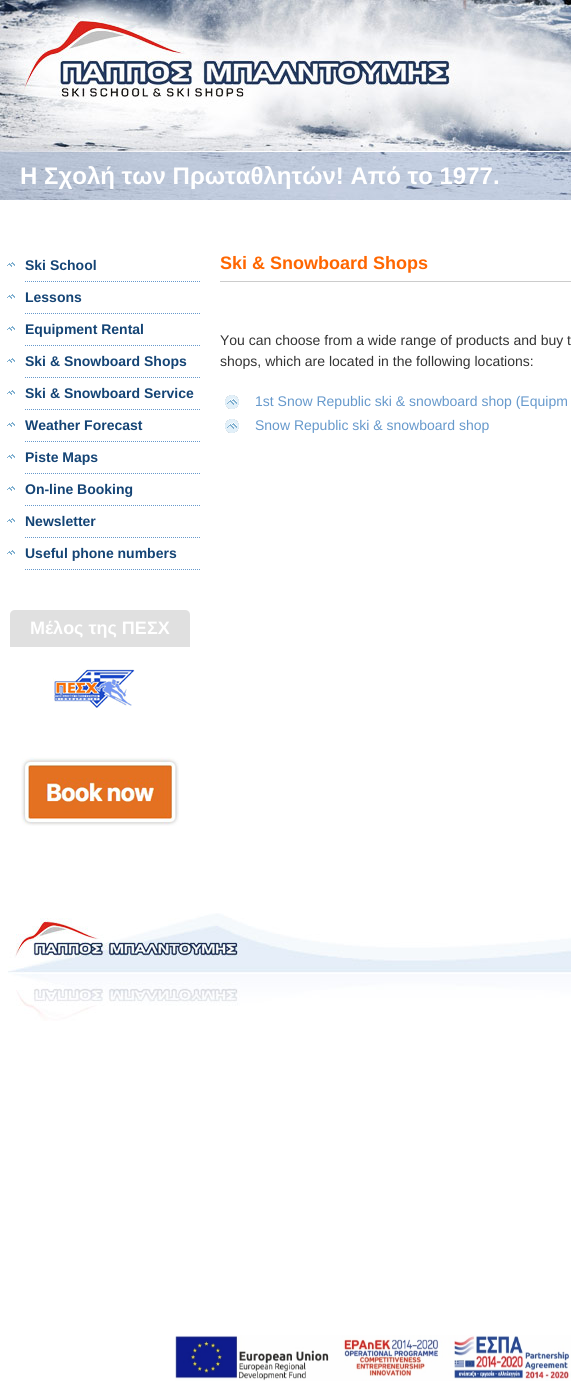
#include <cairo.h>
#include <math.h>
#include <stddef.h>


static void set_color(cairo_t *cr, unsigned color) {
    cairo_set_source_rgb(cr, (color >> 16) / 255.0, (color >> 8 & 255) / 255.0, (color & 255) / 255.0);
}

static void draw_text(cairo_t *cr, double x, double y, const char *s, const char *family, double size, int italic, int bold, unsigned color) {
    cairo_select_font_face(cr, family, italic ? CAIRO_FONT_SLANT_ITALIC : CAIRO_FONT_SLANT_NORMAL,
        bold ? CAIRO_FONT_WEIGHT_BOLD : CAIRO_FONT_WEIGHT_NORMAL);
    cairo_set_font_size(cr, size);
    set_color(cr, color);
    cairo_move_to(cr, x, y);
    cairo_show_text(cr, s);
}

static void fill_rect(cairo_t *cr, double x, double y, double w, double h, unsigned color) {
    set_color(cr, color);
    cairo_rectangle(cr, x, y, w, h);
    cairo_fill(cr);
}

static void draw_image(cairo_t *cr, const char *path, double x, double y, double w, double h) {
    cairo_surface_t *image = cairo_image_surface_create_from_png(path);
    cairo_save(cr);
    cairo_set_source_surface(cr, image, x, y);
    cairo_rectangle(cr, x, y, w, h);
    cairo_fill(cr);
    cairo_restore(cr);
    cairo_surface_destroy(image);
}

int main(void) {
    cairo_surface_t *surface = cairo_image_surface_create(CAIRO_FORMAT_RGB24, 571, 1386);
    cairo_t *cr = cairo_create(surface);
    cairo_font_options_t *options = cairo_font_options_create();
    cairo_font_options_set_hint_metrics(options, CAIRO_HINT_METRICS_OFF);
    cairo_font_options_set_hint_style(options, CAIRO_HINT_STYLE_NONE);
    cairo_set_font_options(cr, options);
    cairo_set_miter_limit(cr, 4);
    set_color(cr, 0xFFFFFF);
    cairo_paint(cr);
    draw_image(cr, "assets/img1.png", 0, 0, 571, 200);
    draw_text(cr, 20, 184, "Η Σχολή των Πρωταθλητών! Από το 1977.", "Liberation Sans", 24, 0, 1, 0xFFFFFF);
    draw_image(cr, "assets/img2.png", 7, 262, 8, 5);
    cairo_new_path(cr);
    cairo_move_to(cr, 25, 281.5);
    cairo_line_to(cr, 200, 281.5);
    set_color(cr, 0x6699CC);
    cairo_set_line_width(cr, 1);
    cairo_set_dash(cr, (double[]){1, 1}, 2, 0);
    cairo_stroke(cr);
    draw_text(cr, 25, 270, "Ski School", "Liberation Sans", 14, 0, 1, 0x144475);
    draw_image(cr, "assets/img2.png", 7, 294, 8, 5);
    cairo_new_path(cr);
    cairo_move_to(cr, 25, 313.5);
    cairo_line_to(cr, 200, 313.5);
    set_color(cr, 0x6699CC);
    cairo_stroke(cr);
    draw_text(cr, 25, 302, "Lessons", "Liberation Sans", 14, 0, 1, 0x144475);
    draw_image(cr, "assets/img2.png", 7, 326, 8, 5);
    cairo_new_path(cr);
    cairo_move_to(cr, 25, 345.5);
    cairo_line_to(cr, 200, 345.5);
    set_color(cr, 0x6699CC);
    cairo_stroke(cr);
    draw_text(cr, 25, 334, "Equipment Rental", "Liberation Sans", 14, 0, 1, 0x144475);
    draw_image(cr, "assets/img2.png", 7, 358, 8, 5);
    cairo_new_path(cr);
    cairo_move_to(cr, 25, 377.5);
    cairo_line_to(cr, 200, 377.5);
    set_color(cr, 0x6699CC);
    cairo_stroke(cr);
    draw_text(cr, 25, 366, "Ski & Snowboard Shops", "Liberation Sans", 14, 0, 1, 0x144475);
    draw_image(cr, "assets/img2.png", 7, 390, 8, 5);
    cairo_new_path(cr);
    cairo_move_to(cr, 25, 409.5);
    cairo_line_to(cr, 200, 409.5);
    set_color(cr, 0x6699CC);
    cairo_stroke(cr);
    draw_text(cr, 25, 398, "Ski & Snowboard Service", "Liberation Sans", 14, 0, 1, 0x144475);
    draw_image(cr, "assets/img2.png", 7, 422, 8, 5);
    cairo_new_path(cr);
    cairo_move_to(cr, 25, 441.5);
    cairo_line_to(cr, 200, 441.5);
    set_color(cr, 0x6699CC);
    cairo_stroke(cr);
    draw_text(cr, 25, 430, "Weather Forecast", "Liberation Sans", 14, 0, 1, 0x144475);
    draw_image(cr, "assets/img2.png", 7, 454, 8, 5);
    cairo_new_path(cr);
    cairo_move_to(cr, 25, 473.5);
    cairo_line_to(cr, 200, 473.5);
    set_color(cr, 0x6699CC);
    cairo_stroke(cr);
    draw_text(cr, 25, 462, "Piste Maps", "Liberation Sans", 14, 0, 1, 0x144475);
    draw_image(cr, "assets/img2.png", 7, 486, 8, 5);
    cairo_new_path(cr);
    cairo_move_to(cr, 25, 505.5);
    cairo_line_to(cr, 200, 505.5);
    set_color(cr, 0x6699CC);
    cairo_stroke(cr);
    draw_text(cr, 25, 494, "On-line Booking", "Liberation Sans", 14, 0, 1, 0x144475);
    draw_image(cr, "assets/img2.png", 7, 518, 8, 5);
    cairo_new_path(cr);
    cairo_move_to(cr, 25, 537.5);
    cairo_line_to(cr, 200, 537.5);
    set_color(cr, 0x6699CC);
    cairo_stroke(cr);
    draw_text(cr, 25, 526, "Newsletter", "Liberation Sans", 14, 0, 1, 0x144475);
    draw_image(cr, "assets/img2.png", 7, 550, 8, 5);
    cairo_new_path(cr);
    cairo_move_to(cr, 25, 569.5);
    cairo_line_to(cr, 200, 569.5);
    set_color(cr, 0x6699CC);
    cairo_stroke(cr);
    draw_text(cr, 25, 558, "Useful phone numbers", "Liberation Sans", 14, 0, 1, 0x144475);
    set_color(cr, 0xE0E0E0);
    cairo_new_path(cr);
    cairo_move_to(cr, 15, 610);
    cairo_line_to(cr, 185, 610);
    cairo_curve_to(cr, 188, 610, 190, 612, 190, 615);
    cairo_line_to(cr, 190, 647);
    cairo_line_to(cr, 10, 647);
    cairo_line_to(cr, 10, 615);
    cairo_curve_to(cr, 10, 612, 12, 610, 15, 610);
    cairo_close_path(cr);
    cairo_fill(cr);
    draw_text(cr, 30, 634, "Μέλος της ΠΕΣΧ", "Liberation Sans", 18, 0, 1, 0xFFFFFF);
    draw_image(cr, "assets/img3.png", 53, 669, 82, 40);
    draw_image(cr, "assets/img4.png", 21, 757, 158, 69);
    fill_rect(cr, 220, 281, 351, 1, 0xCCCCCC);
    draw_text(cr, 220, 269, "Ski & Snowboard Shops", "Liberation Sans", 18, 0, 1, 0xFF6600);
    draw_text(cr, 220, 345, "You can choose from a wide range of products and buy t", "Liberation Sans", 14, 0, 0, 0x333333);
    draw_text(cr, 220, 366, "shops, which are located in the following locations:", "Liberation Sans", 14, 0, 0, 0x333333);
    draw_image(cr, "assets/img5.png", 225, 395, 14, 14);
    draw_text(cr, 255, 406, "1st Snow Republic ski & snowboard shop (Equipm", "Liberation Sans", 14, 0, 0, 0x6699CC);
    draw_image(cr, "assets/img5.png", 225, 419, 14, 14);
    draw_text(cr, 255, 430, "Snow Republic ski & snowboard shop", "Liberation Sans", 14, 0, 0, 0x6699CC);
    draw_image(cr, "assets/img6.png", 175, 1335, 396, 46);
    draw_image(cr, "assets/img7.png", 8, 913, 563, 108);
    cairo_surface_write_to_png(surface, "output.png");
    cairo_font_options_destroy(options);
    cairo_destroy(cr);
    cairo_surface_destroy(surface);
    return 0;
}
